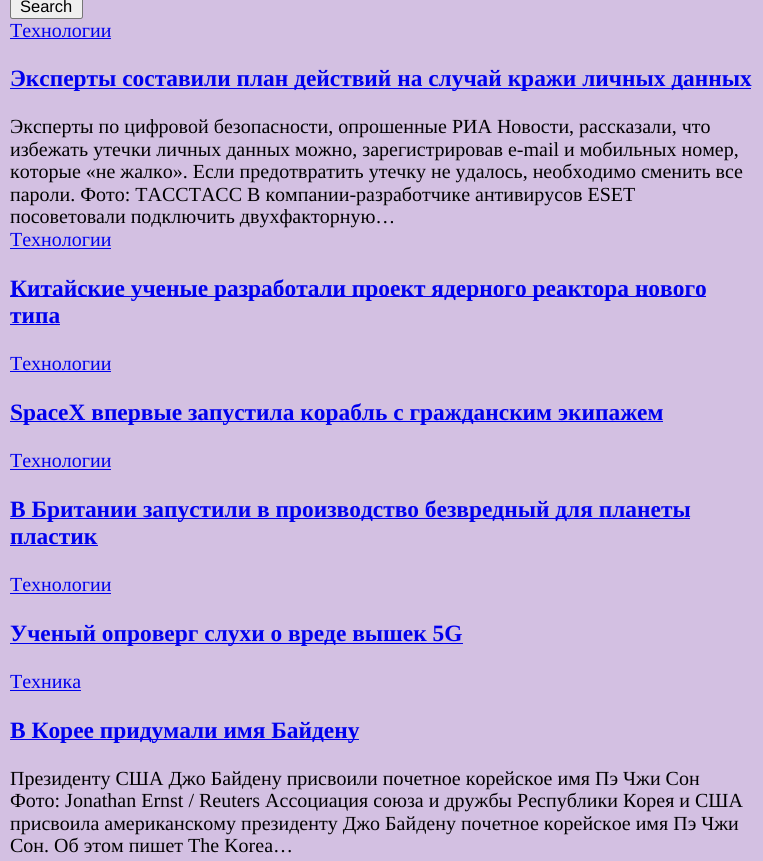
#include <cairo.h>
#include <math.h>
#include <stddef.h>


static void set_color(cairo_t *cr, unsigned color) {
    cairo_set_source_rgb(cr, (color >> 16) / 255.0, (color >> 8 & 255) / 255.0, (color & 255) / 255.0);
}

static void draw_text(cairo_t *cr, double x, double y, const char *s, const char *family, double size, int italic, int bold, unsigned color) {
    cairo_select_font_face(cr, family, italic ? CAIRO_FONT_SLANT_ITALIC : CAIRO_FONT_SLANT_NORMAL,
        bold ? CAIRO_FONT_WEIGHT_BOLD : CAIRO_FONT_WEIGHT_NORMAL);
    cairo_set_font_size(cr, size);
    set_color(cr, color);
    cairo_move_to(cr, x, y);
    cairo_show_text(cr, s);
}

static void fill_rect(cairo_t *cr, double x, double y, double w, double h, unsigned color) {
    set_color(cr, color);
    cairo_rectangle(cr, x, y, w, h);
    cairo_fill(cr);
}

static void rounded_rect(cairo_t *cr, double x, double y, double w, double h, double r) {
    cairo_new_sub_path(cr);
    cairo_arc(cr, x + w - r, y + h - r, r, 0, M_PI / 2);
    cairo_arc(cr, x + r, y + h - r, r, M_PI / 2, M_PI);
    cairo_arc(cr, x + r, y + r, r, M_PI, 1.5 * M_PI);
    cairo_arc(cr, x + w - r, y + r, r, 1.5 * M_PI, 2 * M_PI);
    cairo_close_path(cr);
}

int main(void) {
    cairo_surface_t *surface = cairo_image_surface_create(CAIRO_FORMAT_RGB24, 763, 861);
    cairo_t *cr = cairo_create(surface);
    cairo_font_options_t *options = cairo_font_options_create();
    cairo_font_options_set_hint_metrics(options, CAIRO_HINT_METRICS_OFF);
    cairo_font_options_set_hint_style(options, CAIRO_HINT_STYLE_NONE);
    cairo_set_font_options(cr, options);
    cairo_set_miter_limit(cr, 4);
    set_color(cr, 0xD3C0E2);
    cairo_paint(cr);
    set_color(cr, 0xEFEFEF);
    rounded_rect(cr, 10.5, -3.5, 72, 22, 2);
    cairo_fill_preserve(cr);
    set_color(cr, 0x767676);
    cairo_set_line_width(cr, 1);
    cairo_stroke(cr);
    draw_text(cr, 20, 12, "Search", "Liberation Sans", 16.5, 0, 0, 0x000000);
    draw_text(cr, 10, 37, "Технологии", "Liberation Serif", 20, 0, 0, 0x0000EE);
    fill_rect(cr, 10, 38, 101, 1, 0x0000EE);
    fill_rect(cr, 10, 88, 741, 1, 0x0000EE);
    draw_text(cr, 10, 86, "Эксперты составили план действий на случай кражи личных данных", "Liberation Serif", 23.4, 0, 1, 0x0000EE);
    draw_text(cr, 10, 133, "Эксперты по цифровой безопасности, опрошенные РИА Новости, рассказали, что", "Liberation Serif", 20, 0, 0, 0x000000);
    draw_text(cr, 10, 156, "избежать утечки личных данных можно, зарегистрировав e-mail и мобильных номер,", "Liberation Serif", 20, 0, 0, 0x000000);
    draw_text(cr, 10, 178, "которые «не жалко». Если предотвратить утечку не удалось, необходимо сменить все", "Liberation Serif", 20, 0, 0, 0x000000);
    draw_text(cr, 10, 201, "пароли. Фото: ТАССТАСС В компании-разработчике антивирусов ESET", "Liberation Serif", 20, 0, 0, 0x000000);
    draw_text(cr, 10, 223, "посоветовали подключить двухфакторную…", "Liberation Serif", 20, 0, 0, 0x000000);
    draw_text(cr, 10, 246, "Технологии", "Liberation Serif", 20, 0, 0, 0x0000EE);
    fill_rect(cr, 10, 248, 101, 1, 0x0000EE);
    fill_rect(cr, 10, 296, 696, 1, 0x0000EE);
    draw_text(cr, 10, 296, "Китайские ученые разработали проект ядерного реактора нового", "Liberation Serif", 23.4, 0, 1, 0x0000EE);
    draw_text(cr, 10, 323, "типа", "Liberation Serif", 23.4, 0, 1, 0x0000EE);
    fill_rect(cr, 10, 324, 50, 1, 0x0000EE);
    draw_text(cr, 10, 370, "Технологии", "Liberation Serif", 20, 0, 0, 0x0000EE);
    fill_rect(cr, 10, 371, 101, 1, 0x0000EE);
    fill_rect(cr, 10, 421, 653, 1, 0x0000EE);
    draw_text(cr, 10, 420, "SpaceX впервые запустила корабль с гражданским экипажем", "Liberation Serif", 23.4, 0, 1, 0x0000EE);
    draw_text(cr, 10, 467, "Технологии", "Liberation Serif", 20, 0, 0, 0x0000EE);
    fill_rect(cr, 10, 469, 101, 1, 0x0000EE);
    fill_rect(cr, 10, 518, 680, 1, 0x0000EE);
    draw_text(cr, 10, 517, "В Британии запустили в производство безвредный для планеты", "Liberation Serif", 23.4, 0, 1, 0x0000EE);
    draw_text(cr, 10, 544, "пластик", "Liberation Serif", 23.4, 0, 1, 0x0000EE);
    fill_rect(cr, 10, 545, 88, 1, 0x0000EE);
    draw_text(cr, 10, 591, "Технологии", "Liberation Serif", 20, 0, 0, 0x0000EE);
    fill_rect(cr, 10, 593, 101, 1, 0x0000EE);
    fill_rect(cr, 10, 643, 453, 1, 0x0000EE);
    draw_text(cr, 10, 641, "Ученый опроверг слухи о вреде вышек 5G", "Liberation Serif", 23.4, 0, 1, 0x0000EE);
    draw_text(cr, 10, 688, "Техника", "Liberation Serif", 20, 0, 0, 0x0000EE);
    fill_rect(cr, 10, 690, 71, 1, 0x0000EE);
    fill_rect(cr, 10, 739, 349, 1, 0x0000EE);
    draw_text(cr, 10, 738, "В Корее придумали имя Байдену", "Liberation Serif", 23.4, 0, 1, 0x0000EE);
    draw_text(cr, 10, 785, "Президенту США Джо Байдену присвоили почетное корейское имя Пэ Чжи Сон", "Liberation Serif", 20, 0, 0, 0x000000);
    draw_text(cr, 10, 807, "Фото: Jonathan Ernst / Reuters Ассоциация союза и дружбы Республики Корея и США", "Liberation Serif", 20, 0, 0, 0x000000);
    draw_text(cr, 10, 830, "присвоила американскому президенту Джо Байдену почетное корейское имя Пэ Чжи", "Liberation Serif", 20, 0, 0, 0x000000);
    draw_text(cr, 10, 852, "Сон. Об этом пишет The Korea…", "Liberation Serif", 20, 0, 0, 0x000000);
    cairo_surface_write_to_png(surface, "output.png");
    cairo_font_options_destroy(options);
    cairo_destroy(cr);
    cairo_surface_destroy(surface);
    return 0;
}
